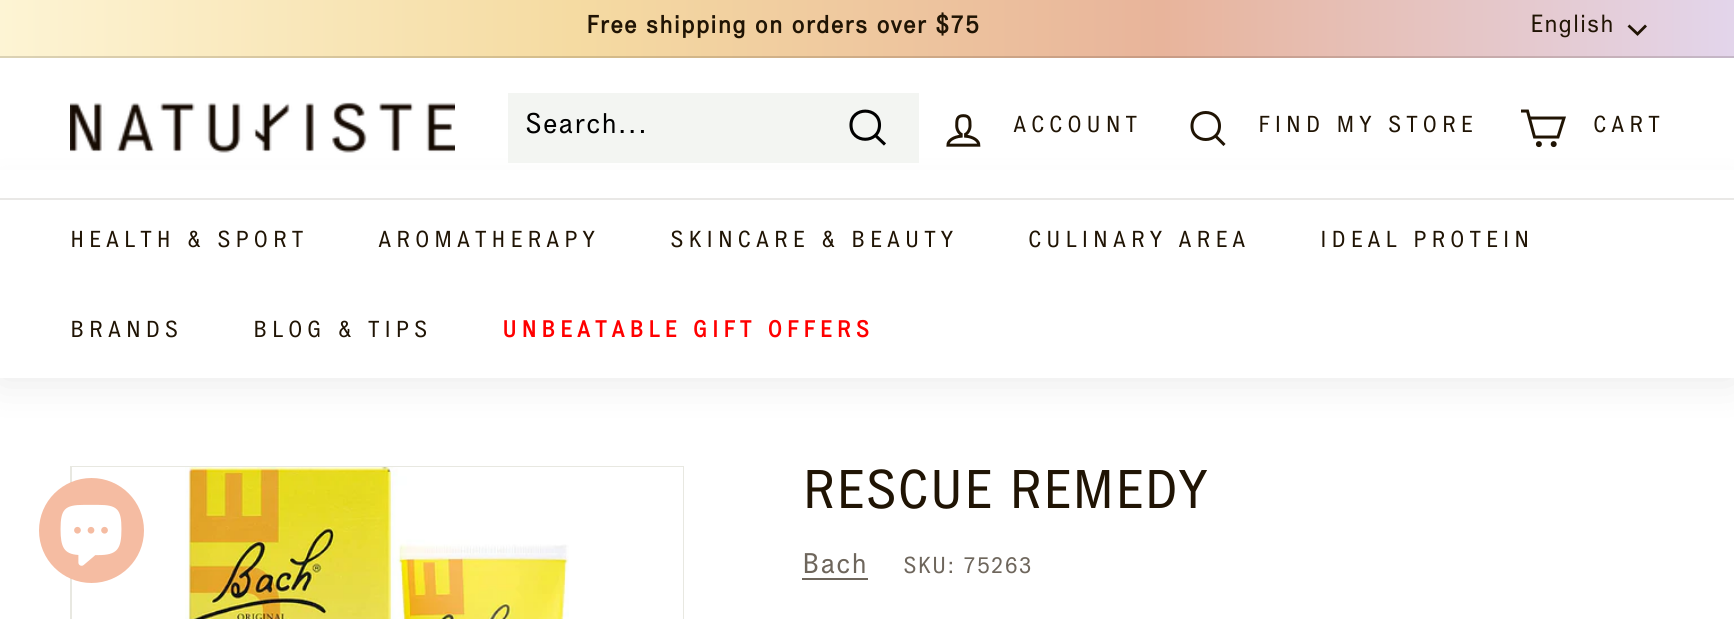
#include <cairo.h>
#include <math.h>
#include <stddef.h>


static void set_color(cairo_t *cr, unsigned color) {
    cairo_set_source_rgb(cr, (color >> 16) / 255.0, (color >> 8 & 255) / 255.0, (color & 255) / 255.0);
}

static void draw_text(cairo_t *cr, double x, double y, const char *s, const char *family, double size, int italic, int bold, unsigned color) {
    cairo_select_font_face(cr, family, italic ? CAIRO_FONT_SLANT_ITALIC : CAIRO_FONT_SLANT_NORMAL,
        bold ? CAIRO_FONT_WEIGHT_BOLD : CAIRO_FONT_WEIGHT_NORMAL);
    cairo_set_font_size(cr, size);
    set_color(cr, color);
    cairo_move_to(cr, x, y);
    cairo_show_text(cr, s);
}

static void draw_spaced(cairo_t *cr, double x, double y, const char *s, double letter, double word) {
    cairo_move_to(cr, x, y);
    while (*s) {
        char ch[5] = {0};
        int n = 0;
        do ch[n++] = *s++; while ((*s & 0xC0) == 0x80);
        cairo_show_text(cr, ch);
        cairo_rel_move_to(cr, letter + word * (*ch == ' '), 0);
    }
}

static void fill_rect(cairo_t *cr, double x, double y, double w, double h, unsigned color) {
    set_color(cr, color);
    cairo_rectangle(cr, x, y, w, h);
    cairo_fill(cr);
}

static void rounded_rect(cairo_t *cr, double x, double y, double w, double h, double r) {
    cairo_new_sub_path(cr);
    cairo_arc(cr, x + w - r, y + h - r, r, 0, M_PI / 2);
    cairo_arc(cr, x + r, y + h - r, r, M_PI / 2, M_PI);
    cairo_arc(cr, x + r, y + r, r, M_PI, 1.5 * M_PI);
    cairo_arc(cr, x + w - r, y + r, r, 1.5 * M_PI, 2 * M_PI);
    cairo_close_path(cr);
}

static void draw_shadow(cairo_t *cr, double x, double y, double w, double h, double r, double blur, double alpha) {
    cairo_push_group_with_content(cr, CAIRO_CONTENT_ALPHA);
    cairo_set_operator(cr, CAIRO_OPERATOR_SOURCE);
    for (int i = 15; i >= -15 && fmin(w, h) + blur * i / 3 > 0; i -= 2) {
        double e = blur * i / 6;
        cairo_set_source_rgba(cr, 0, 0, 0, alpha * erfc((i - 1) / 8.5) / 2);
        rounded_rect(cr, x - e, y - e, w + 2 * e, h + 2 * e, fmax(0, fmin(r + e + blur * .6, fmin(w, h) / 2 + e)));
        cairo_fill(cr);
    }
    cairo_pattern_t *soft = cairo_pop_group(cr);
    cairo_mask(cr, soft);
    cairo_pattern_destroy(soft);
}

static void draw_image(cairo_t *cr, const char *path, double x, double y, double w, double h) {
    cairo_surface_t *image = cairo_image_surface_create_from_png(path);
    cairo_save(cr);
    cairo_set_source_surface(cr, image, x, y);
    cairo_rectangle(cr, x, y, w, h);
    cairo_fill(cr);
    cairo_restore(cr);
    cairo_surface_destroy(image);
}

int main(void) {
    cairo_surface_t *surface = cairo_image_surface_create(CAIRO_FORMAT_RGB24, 1734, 619);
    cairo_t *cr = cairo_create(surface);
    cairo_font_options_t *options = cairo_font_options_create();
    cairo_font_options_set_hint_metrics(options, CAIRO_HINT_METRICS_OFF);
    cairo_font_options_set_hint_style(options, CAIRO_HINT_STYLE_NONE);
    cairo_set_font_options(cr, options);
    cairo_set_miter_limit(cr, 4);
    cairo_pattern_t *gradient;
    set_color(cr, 0xFFFFFF);
    cairo_paint(cr);
    gradient = cairo_pattern_create_linear(0, 29, 1734, 29);
    cairo_pattern_add_color_stop_rgba(gradient, 0, 0.992, 0.957, 0.831, 1);
    cairo_pattern_add_color_stop_rgba(gradient, 0.33, 0.961, 0.859, 0.635, 1);
    cairo_pattern_add_color_stop_rgba(gradient, 0.67, 0.91, 0.706, 0.608, 1);
    cairo_pattern_add_color_stop_rgba(gradient, 1, 0.89, 0.835, 0.922, 1);
    cairo_set_source(cr, gradient);
    cairo_pattern_destroy(gradient);
    cairo_rectangle(cr, 0, 0, 1734, 58);
    cairo_fill(cr);
    cairo_select_font_face(cr, "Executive", CAIRO_FONT_SLANT_NORMAL, CAIRO_FONT_WEIGHT_BOLD);
    cairo_set_font_size(cr, 24.5);
    set_color(cr, 0x201404);
    draw_spaced(cr, 586, 33, "Free shipping on orders over $75", 0.7, 0);
    cairo_select_font_face(cr, "Executive", CAIRO_FONT_SLANT_NORMAL, CAIRO_FONT_WEIGHT_NORMAL);
    draw_spaced(cr, 1530, 32, "English", 0.5, 0);
    cairo_new_path(cr);
    cairo_move_to(cr, 1628.5, 25.5);
    cairo_line_to(cr, 1637.5, 34);
    cairo_line_to(cr, 1646, 25.5);
    cairo_set_line_width(cr, 2.8);
    cairo_stroke(cr);
    cairo_set_source_rgba(cr, 0.125, 0.078, 0.016, 0.15);
    cairo_rectangle(cr, 0, 56, 1734, 2);
    cairo_fill(cr);
    set_color(cr, 0x000000);
    draw_shadow(cr, 0, 198, 1734, 180, 0, 22, 0.1);
    fill_rect(cr, 0, 170, 1734, 28, 0xFFFFFF);
    draw_image(cr, "assets/img1.png", 70, 102, 385, 51);
    fill_rect(cr, 508, 93, 411, 70, 0xF3F5F2);
    cairo_set_font_size(cr, 28);
    set_color(cr, 0x000000);
    draw_spaced(cr, 525, 133, "Search...", 0.7, 0);
    cairo_new_path(cr);
    cairo_move_to(cr, 879.5, 125);
    cairo_curve_to(cr, 879.5, 144, 851, 144, 851, 125);
    cairo_curve_to(cr, 851, 106.5, 879.5, 106.5, 879.5, 125);
    cairo_close_path(cr);
    cairo_move_to(cr, 885, 144.5);
    cairo_line_to(cr, 875.5, 135.5);
    cairo_set_line_width(cr, 3.1);
    cairo_stroke(cr);
    draw_image(cr, "assets/img2.png", 946, 114, 35, 33);
    cairo_set_font_size(cr, 22.75);
    set_color(cr, 0x201404);
    draw_spaced(cr, 1013, 132, "ACCOUNT", 4.55, 0);
    cairo_new_path(cr);
    cairo_move_to(cr, 1219.5, 126);
    cairo_curve_to(cr, 1219.5, 144, 1192, 144, 1192, 126);
    cairo_curve_to(cr, 1192, 108, 1219.5, 108, 1219.5, 126);
    cairo_close_path(cr);
    cairo_move_to(cr, 1224.5, 145);
    cairo_line_to(cr, 1215.5, 136);
    cairo_set_line_width(cr, 3);
    cairo_stroke(cr);
    draw_spaced(cr, 1258, 132, "FIND MY STORE", 4.55, 0);
    cairo_new_path(cr);
    cairo_move_to(cr, 1529.5, 118);
    cairo_line_to(cr, 1564, 118);
    cairo_line_to(cr, 1558, 137);
    cairo_line_to(cr, 1534.5, 137);
    cairo_line_to(cr, 1527.5, 111);
    cairo_line_to(cr, 1521, 111);
    cairo_stroke(cr);
    cairo_arc(cr, 1538.9, 144.1, 1.5, 0, 2 * M_PI);
    cairo_stroke(cr);
    cairo_arc(cr, 1553.7, 144.1, 1.5, 0, 2 * M_PI);
    cairo_stroke(cr);
    draw_spaced(cr, 1593, 132, "CART", 4.55, 0);
    fill_rect(cr, 0, 200, 1734, 178, 0xFFFFFF);
    fill_rect(cr, 0, 198, 1734, 2, 0xE9E8E6);
    set_color(cr, 0x201404);
    draw_spaced(cr, 70, 247, "HEALTH & SPORT", 4.55, 0);
    draw_spaced(cr, 378, 247, "AROMATHERAPY", 4.55, 0);
    draw_spaced(cr, 670, 247, "SKINCARE & BEAUTY", 4.55, 0);
    draw_spaced(cr, 1028, 247, "CULINARY AREA", 4.55, 0);
    draw_spaced(cr, 1320, 247, "IDEAL PROTEIN", 4.55, 0);
    draw_spaced(cr, 70, 337, "BRANDS", 4.55, 0);
    draw_spaced(cr, 253, 337, "BLOG & TIPS", 4.55, 0);
    cairo_select_font_face(cr, "Executive", CAIRO_FONT_SLANT_NORMAL, CAIRO_FONT_WEIGHT_BOLD);
    set_color(cr, 0xFF0000);
    draw_spaced(cr, 502, 337, "UNBEATABLE GIFT OFFERS", 4.55, 0);
    cairo_rectangle(cr, 71, 467, 612, 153);
    set_color(cr, 0xE8E8E1);
    cairo_set_line_width(cr, 2);
    cairo_stroke(cr);
    fill_rect(cr, 72, 467, 611, 152, 0xFFFFFF);
    draw_image(cr, "assets/img3.png", 185, 467, 384, 152);
    draw_text(cr, 802, 508, "RESCUE REMEDY", "Executive", 53.5, 0, 0, 0x201404);
    cairo_set_font_size(cr, 28);
    set_color(cr, 0x6E665C);
    draw_spaced(cr, 802, 573, "Bach", 0.7, 0);
    fill_rect(cr, 802, 578, 66, 2, 0x6E665C);
    cairo_set_font_size(cr, 22.75);
    draw_spaced(cr, 903, 573, "SKU: 75263", 0.7, 0);
    set_color(cr, 0xF5BCA2);
    cairo_new_path(cr);
    cairo_arc(cr, 91.5, 530.5, 52.5, 0, 2 * M_PI);
    cairo_fill(cr);
    draw_image(cr, "assets/img4.png", 60, 504, 62, 62);
    cairo_surface_write_to_png(surface, "output.png");
    cairo_font_options_destroy(options);
    cairo_destroy(cr);
    cairo_surface_destroy(surface);
    return 0;
}
